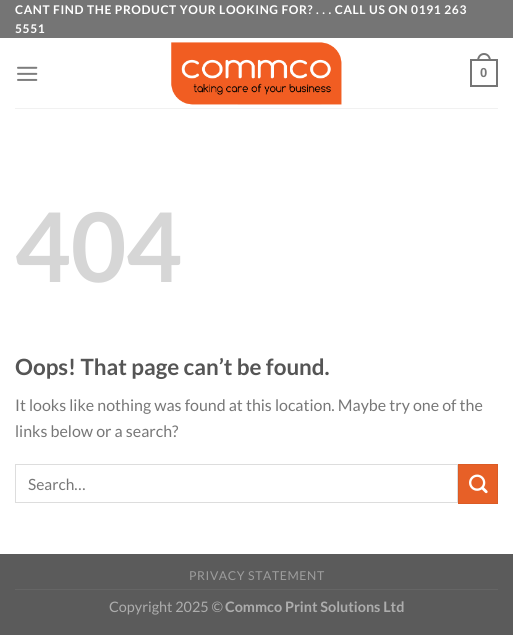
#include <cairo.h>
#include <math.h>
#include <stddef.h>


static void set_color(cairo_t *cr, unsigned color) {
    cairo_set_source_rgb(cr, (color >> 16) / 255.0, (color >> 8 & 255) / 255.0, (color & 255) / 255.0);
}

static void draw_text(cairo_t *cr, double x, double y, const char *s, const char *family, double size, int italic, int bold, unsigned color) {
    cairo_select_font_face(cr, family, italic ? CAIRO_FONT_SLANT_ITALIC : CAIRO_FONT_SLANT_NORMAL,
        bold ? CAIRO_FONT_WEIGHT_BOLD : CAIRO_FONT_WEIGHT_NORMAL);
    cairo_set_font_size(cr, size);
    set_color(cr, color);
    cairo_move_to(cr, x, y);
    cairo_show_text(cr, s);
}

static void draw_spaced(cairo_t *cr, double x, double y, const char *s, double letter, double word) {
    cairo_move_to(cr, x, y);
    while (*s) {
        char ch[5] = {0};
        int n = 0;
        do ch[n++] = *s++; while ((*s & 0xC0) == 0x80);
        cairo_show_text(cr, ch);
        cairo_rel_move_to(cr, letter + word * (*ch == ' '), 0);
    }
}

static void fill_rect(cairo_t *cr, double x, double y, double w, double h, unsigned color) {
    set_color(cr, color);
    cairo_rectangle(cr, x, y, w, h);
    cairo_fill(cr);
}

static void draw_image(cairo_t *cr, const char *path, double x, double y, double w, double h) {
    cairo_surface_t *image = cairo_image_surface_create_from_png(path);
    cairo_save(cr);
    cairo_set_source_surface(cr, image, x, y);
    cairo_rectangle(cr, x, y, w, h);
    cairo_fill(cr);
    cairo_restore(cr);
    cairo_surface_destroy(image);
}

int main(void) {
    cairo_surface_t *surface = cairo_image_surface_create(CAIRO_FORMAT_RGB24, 513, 635);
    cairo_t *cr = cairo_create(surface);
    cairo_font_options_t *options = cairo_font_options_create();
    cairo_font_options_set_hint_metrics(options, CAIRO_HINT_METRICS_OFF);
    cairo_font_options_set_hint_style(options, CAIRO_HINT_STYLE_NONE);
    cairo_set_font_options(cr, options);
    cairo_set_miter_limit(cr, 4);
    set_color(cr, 0x5B5B5B);
    cairo_paint(cr);
    fill_rect(cr, 0, 38, 513, 516, 0xFFFFFF);
    fill_rect(cr, 0, 0, 513, 38, 0x757575);
    cairo_select_font_face(cr, "Lato", CAIRO_FONT_SLANT_NORMAL, CAIRO_FONT_WEIGHT_BOLD);
    cairo_set_font_size(cr, 12);
    set_color(cr, 0xFFFFFF);
    draw_spaced(cr, 15, 14, "CANT FIND THE PRODUCT YOUR LOOKING FOR? . . . CALL US ON 0191 263", 0.6, 0);
    draw_spaced(cr, 15, 33, "5551", 0.6, 0);
    draw_image(cr, "assets/img1.png", 17, 66, 21, 15);
    draw_image(cr, "assets/img2.png", 171, 42, 171, 63);
    cairo_rectangle(cr, 471, 60, 26, 26);
    set_color(cr, 0x757575);
    cairo_stroke(cr);
    cairo_set_fill_rule(cr, CAIRO_FILL_RULE_EVEN_ODD);
    cairo_new_path(cr);
    cairo_move_to(cr, 484, 53);
    cairo_curve_to(cr, 488.5, 53, 491, 57, 491, 61);
    cairo_line_to(cr, 477, 61);
    cairo_curve_to(cr, 477, 57, 479.5, 53, 484, 53);
    cairo_close_path(cr);
    cairo_move_to(cr, 484, 55);
    cairo_curve_to(cr, 487.5, 55, 489, 58, 489, 61);
    cairo_line_to(cr, 479, 61);
    cairo_curve_to(cr, 479, 58, 480.5, 55, 484, 55);
    cairo_close_path(cr);
    cairo_fill(cr);
    draw_text(cr, 480, 77, "0", "Liberation Sans", 13, 0, 1, 0x777777);
    fill_rect(cr, 15, 108, 483, 1, 0xF1F1F1);
    draw_text(cr, 15, 282, "404", "Lato", 96, 0, 1, 0xD6D6D6);
    draw_text(cr, 15, 375, "Oops! That page can’t be found.", "Lato", 22.4, 0, 1, 0x555555);
    draw_text(cr, 15, 411, "It looks like nothing was found at this location. Maybe try one of the", "Lato", 16, 0, 0, 0x777777);
    draw_text(cr, 15, 437, "links below or a search?", "Lato", 16, 0, 0, 0x777777);
    cairo_rectangle(cr, 15.5, 464.5, 442, 38);
    set_color(cr, 0xDDDDDD);
    cairo_set_line_width(cr, 1);
    cairo_stroke(cr);
    draw_text(cr, 28, 490, "Search…", "Lato", 15.5, 0, 0, 0x777777);
    set_color(cr, 0xE76027);
    cairo_rectangle(cr, 458.5, 464.5, 39, 39);
    cairo_fill_preserve(cr);
    set_color(cr, 0xDB5B25);
    cairo_stroke(cr);
    draw_image(cr, "assets/img3.png", 469, 474, 19, 20);
    fill_rect(cr, 15, 589, 483, 1, 0x656565);
    cairo_set_font_size(cr, 12.25);
    set_color(cr, 0x9D9D9D);
    draw_spaced(cr, 189, 580, "PRIVACY STATEMENT", 0.6, 0);
    draw_text(cr, 109, 612, "Copyright 2025 ©", "Lato", 14.4, 0, 0, 0xADADAD);
    draw_text(cr, 225, 612, "Commco Print Solutions Ltd", "Lato", 14.4, 0, 1, 0xADADAD);
    cairo_surface_write_to_png(surface, "output.png");
    cairo_font_options_destroy(options);
    cairo_destroy(cr);
    cairo_surface_destroy(surface);
    return 0;
}
